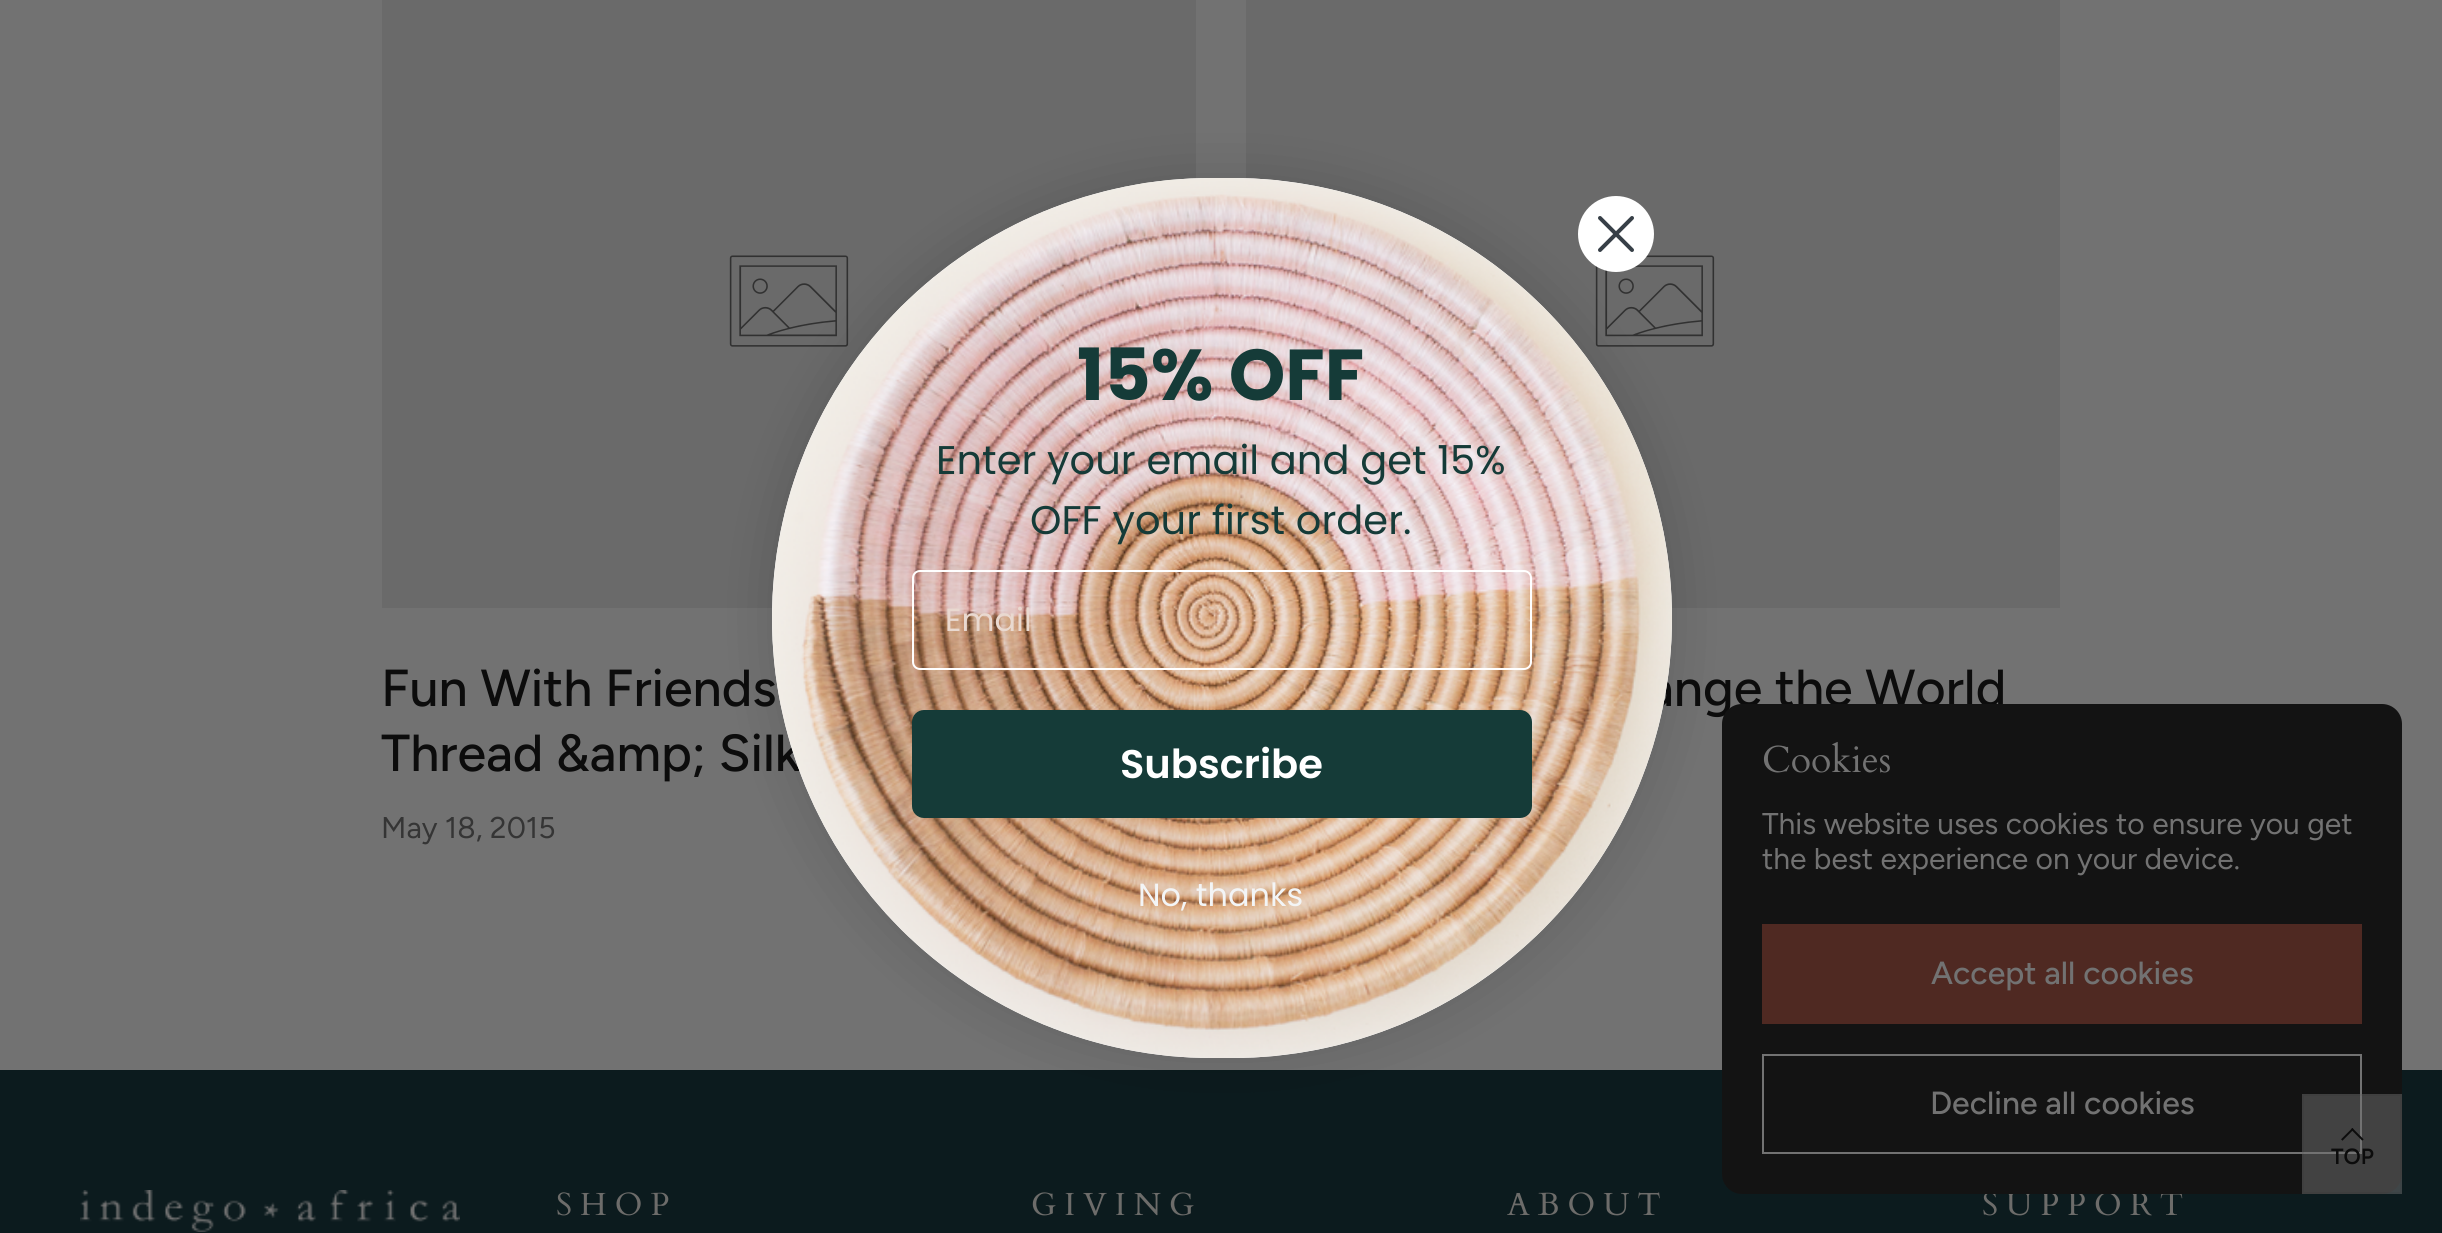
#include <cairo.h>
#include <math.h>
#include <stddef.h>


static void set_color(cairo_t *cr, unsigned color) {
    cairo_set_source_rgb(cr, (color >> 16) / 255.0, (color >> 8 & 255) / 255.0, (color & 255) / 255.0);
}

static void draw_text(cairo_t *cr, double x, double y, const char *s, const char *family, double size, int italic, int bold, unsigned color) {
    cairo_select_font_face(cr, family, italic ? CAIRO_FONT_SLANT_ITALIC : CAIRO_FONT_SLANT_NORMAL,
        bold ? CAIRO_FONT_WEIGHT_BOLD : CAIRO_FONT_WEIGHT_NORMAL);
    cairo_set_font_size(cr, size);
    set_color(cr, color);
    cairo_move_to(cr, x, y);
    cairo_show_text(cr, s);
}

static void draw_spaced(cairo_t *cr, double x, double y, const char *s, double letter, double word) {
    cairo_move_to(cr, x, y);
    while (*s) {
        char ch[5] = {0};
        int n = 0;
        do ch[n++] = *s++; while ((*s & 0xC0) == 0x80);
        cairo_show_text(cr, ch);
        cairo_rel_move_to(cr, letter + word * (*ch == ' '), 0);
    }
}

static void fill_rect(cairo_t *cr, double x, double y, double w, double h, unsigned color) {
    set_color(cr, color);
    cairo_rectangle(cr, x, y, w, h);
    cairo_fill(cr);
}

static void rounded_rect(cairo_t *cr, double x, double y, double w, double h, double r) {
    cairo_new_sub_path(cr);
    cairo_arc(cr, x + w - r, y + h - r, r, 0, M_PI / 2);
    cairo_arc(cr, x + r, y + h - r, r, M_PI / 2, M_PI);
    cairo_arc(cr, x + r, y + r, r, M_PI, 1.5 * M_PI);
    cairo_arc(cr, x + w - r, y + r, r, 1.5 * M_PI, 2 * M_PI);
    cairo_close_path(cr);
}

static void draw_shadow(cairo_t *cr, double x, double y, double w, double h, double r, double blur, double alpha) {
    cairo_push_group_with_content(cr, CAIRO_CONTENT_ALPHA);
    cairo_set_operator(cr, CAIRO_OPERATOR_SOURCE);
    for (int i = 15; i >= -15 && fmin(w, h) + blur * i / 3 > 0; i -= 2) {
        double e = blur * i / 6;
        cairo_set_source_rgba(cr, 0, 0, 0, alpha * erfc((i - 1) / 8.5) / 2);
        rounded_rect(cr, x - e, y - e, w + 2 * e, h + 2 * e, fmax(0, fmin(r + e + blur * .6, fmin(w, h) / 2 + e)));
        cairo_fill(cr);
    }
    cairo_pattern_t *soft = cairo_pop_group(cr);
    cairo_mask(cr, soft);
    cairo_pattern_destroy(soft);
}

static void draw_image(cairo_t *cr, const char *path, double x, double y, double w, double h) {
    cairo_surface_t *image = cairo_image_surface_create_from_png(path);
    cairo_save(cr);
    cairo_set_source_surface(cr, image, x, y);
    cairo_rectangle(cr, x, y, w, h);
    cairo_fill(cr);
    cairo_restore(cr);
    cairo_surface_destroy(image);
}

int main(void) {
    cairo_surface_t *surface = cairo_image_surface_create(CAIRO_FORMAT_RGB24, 2442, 1233);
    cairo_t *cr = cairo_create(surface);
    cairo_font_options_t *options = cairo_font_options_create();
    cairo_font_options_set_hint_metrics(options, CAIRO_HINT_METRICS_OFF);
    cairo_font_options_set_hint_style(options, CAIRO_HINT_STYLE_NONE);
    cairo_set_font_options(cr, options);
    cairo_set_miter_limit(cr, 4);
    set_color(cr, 0x727272);
    cairo_paint(cr);
    fill_rect(cr, 382, 0, 814, 608, 0x6A6A6A);
    draw_image(cr, "assets/img2.png", 729, 255, 120, 92);
    fill_rect(cr, 1246, 0, 814, 608, 0x6A6A6A);
    draw_image(cr, "assets/img2.png", 1595, 255, 120, 92);
    draw_text(cr, 1647, 706, "ange the World", "Figtree Medium", 52, 0, 0, 0x0C0C0C);
    fill_rect(cr, 0, 1070, 2442, 163, 0x0C1B1E);
    cairo_select_font_face(cr, "Cardo", CAIRO_FONT_SLANT_NORMAL, CAIRO_FONT_WEIGHT_NORMAL);
    cairo_set_font_size(cr, 32);
    set_color(cr, 0x6D6C6A);
    draw_spaced(cr, 1982, 1215, "SUPPORT", 8, 0);
    set_color(cr, 0x131313);
    rounded_rect(cr, 1722, 704, 680, 490, 20);
    cairo_fill(cr);
    fill_rect(cr, 1762, 924, 600, 100, 0x4F2922);
    cairo_rectangle(cr, 1763, 1055, 598, 98);
    set_color(cr, 0x727272);
    cairo_stroke(cr);
    set_color(cr, 0x000000);
    draw_shadow(cr, 772, 178, 900, 880, 440, 30, 0.15);
    draw_text(cr, 381, 706, "Fun With Friends", "Figtree Medium", 52, 0, 0, 0x0C0C0C);
    draw_text(cr, 381, 771, "Thread &amp; Silk", "Figtree Medium", 52, 0, 0, 0x0C0C0C);
    set_color(cr, 0xFEFEFE);
    rounded_rect(cr, 772, 178, 900, 880, 440);
    cairo_fill(cr);
    draw_image(cr, "assets/img1.png", 772, 178, 900, 880);
    set_color(cr, 0xFFFFFF);
    cairo_arc(cr, 1616, 234, 38, 0, 2 * M_PI);
    cairo_fill(cr);
    cairo_new_path(cr);
    cairo_move_to(cr, 1600, 218);
    cairo_line_to(cr, 1632, 250);
    cairo_move_to(cr, 1600, 250);
    cairo_line_to(cr, 1632, 218);
    cairo_close_path(cr);
    set_color(cr, 0x373F47);
    cairo_set_line_width(cr, 4);
    cairo_set_line_cap(cr, CAIRO_LINE_CAP_ROUND);
    cairo_set_line_join(cr, CAIRO_LINE_JOIN_ROUND);
    cairo_stroke(cr);
    draw_text(cr, 1077, 400, "15% OFF", "Poppins", 72, 0, 1, 0x153B38);
    draw_text(cr, 936, 474, "Enter your email and get 15%", "Poppins", 40, 0, 0, 0x153B38);
    draw_text(cr, 1030, 534, "OFF your first order.", "Poppins", 40, 0, 0, 0x153B38);
    rounded_rect(cr, 913, 571, 618, 98, 7);
    set_color(cr, 0xFFFFFF);
    cairo_set_line_width(cr, 2);
    cairo_set_line_cap(cr, CAIRO_LINE_CAP_BUTT);
    cairo_set_line_join(cr, CAIRO_LINE_JOIN_MITER);
    cairo_stroke(cr);
    draw_text(cr, 945, 631, "Email", "Poppins", 32, 0, 0, 0xE9D9D0);
    set_color(cr, 0x153B38);
    rounded_rect(cr, 912, 710, 620, 108, 12);
    cairo_fill(cr);
    draw_text(cr, 1120, 778, "Subscribe", "Poppins SemiBold", 40, 0, 0, 0xFFFFFF);
    draw_text(cr, 1138, 906, "No, thanks", "Poppins", 32, 0, 0, 0xF3F5F6);
    draw_text(cr, 381, 838, "May 18, 2015", "Figtree", 30, 0, 0, 0x353535);
    draw_text(cr, 1762, 772, "Cookies", "Cardo", 37.5, 0, 0, 0x727272);
    draw_text(cr, 1762, 834, "This website uses cookies to ensure you get", "Figtree", 30, 0, 0, 0x727272);
    draw_text(cr, 1762, 869, "the best experience on your device.", "Figtree", 30, 0, 0, 0x727272);
    draw_text(cr, 1931, 984, "Accept all cookies", "Figtree Medium", 32, 0, 0, 0x727272);
    draw_text(cr, 1930, 1114, "Decline all cookies", "Figtree Medium", 32, 0, 0, 0x727272);
    cairo_set_source_rgba(cr, 0.447, 0.447, 0.447, 0.5);
    cairo_rectangle(cr, 2302, 1094, 100, 100);
    cairo_fill(cr);
    cairo_rectangle(cr, 2303, 1095, 98, 98);
    cairo_set_source_rgba(cr, 0.047, 0.047, 0.047, 0.05);
    cairo_stroke(cr);
    draw_image(cr, "assets/img3.png", 2341, 1128, 23, 13);
    draw_text(cr, 2331, 1164, "TOP", "Figtree SemiBold", 22, 0, 0, 0x0C0C0C);
    draw_image(cr, "assets/img4.png", 80, 1190, 380, 42);
    cairo_select_font_face(cr, "Cardo", CAIRO_FONT_SLANT_NORMAL, CAIRO_FONT_WEIGHT_NORMAL);
    cairo_set_font_size(cr, 32);
    set_color(cr, 0x6D6C6A);
    draw_spaced(cr, 556, 1215, "SHOP", 8, 0);
    draw_spaced(cr, 1031, 1215, "GIVING", 8, 0);
    draw_spaced(cr, 1507, 1215, "ABOUT", 8, 0);
    cairo_surface_write_to_png(surface, "output.png");
    cairo_font_options_destroy(options);
    cairo_destroy(cr);
    cairo_surface_destroy(surface);
    return 0;
}
